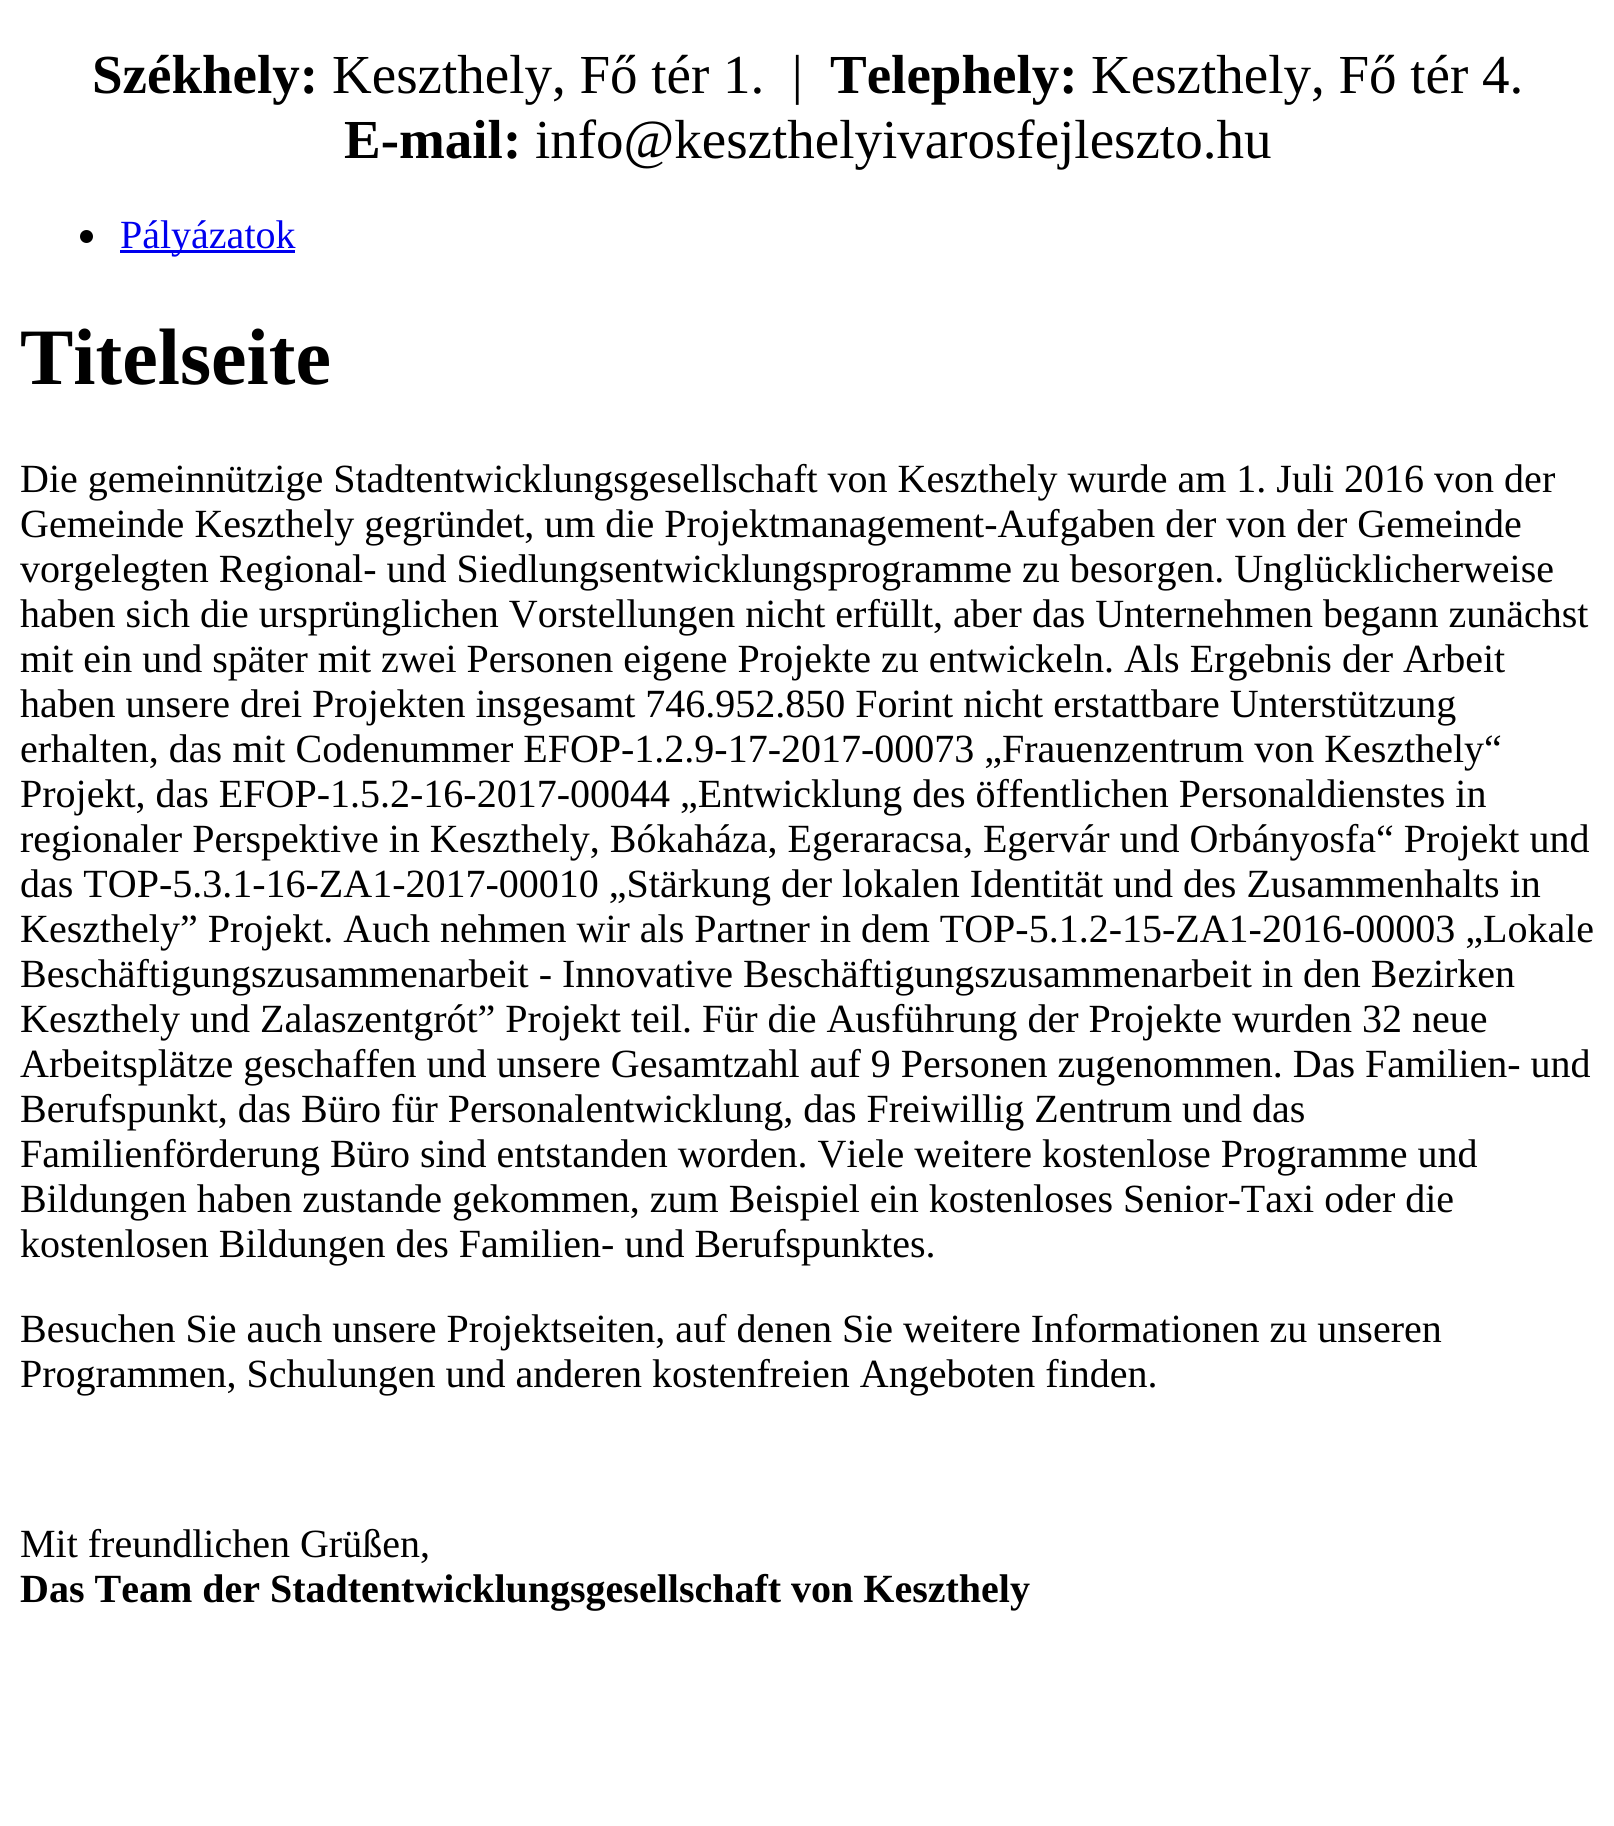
#include <cairo.h>
#include <math.h>
#include <stddef.h>


static void set_color(cairo_t *cr, unsigned color) {
    cairo_set_source_rgb(cr, (color >> 16) / 255.0, (color >> 8 & 255) / 255.0, (color & 255) / 255.0);
}

static void draw_text(cairo_t *cr, double x, double y, const char *s, const char *family, double size, int italic, int bold, unsigned color) {
    cairo_select_font_face(cr, family, italic ? CAIRO_FONT_SLANT_ITALIC : CAIRO_FONT_SLANT_NORMAL,
        bold ? CAIRO_FONT_WEIGHT_BOLD : CAIRO_FONT_WEIGHT_NORMAL);
    cairo_set_font_size(cr, size);
    set_color(cr, color);
    cairo_move_to(cr, x, y);
    cairo_show_text(cr, s);
}

static void fill_rect(cairo_t *cr, double x, double y, double w, double h, unsigned color) {
    set_color(cr, color);
    cairo_rectangle(cr, x, y, w, h);
    cairo_fill(cr);
}

int main(void) {
    cairo_surface_t *surface = cairo_image_surface_create(CAIRO_FORMAT_RGB24, 1614, 1826);
    cairo_t *cr = cairo_create(surface);
    cairo_font_options_t *options = cairo_font_options_create();
    cairo_font_options_set_hint_metrics(options, CAIRO_HINT_METRICS_OFF);
    cairo_font_options_set_hint_style(options, CAIRO_HINT_STYLE_NONE);
    cairo_set_font_options(cr, options);
    cairo_set_miter_limit(cr, 4);
    set_color(cr, 0xFFFFFF);
    cairo_paint(cr);
    draw_text(cr, 92, 93, "Székhely:", "Liberation Serif", 55, 0, 1, 0x000000);
    draw_text(cr, 332, 93, "Keszthely, Fő tér 1.  |", "Liberation Serif", 55, 0, 0, 0x000000);
    draw_text(cr, 830, 93, "Telephely:", "Liberation Serif", 55, 0, 1, 0x000000);
    draw_text(cr, 1091, 93, "Keszthely, Fő tér 4.", "Liberation Serif", 55, 0, 0, 0x000000);
    draw_text(cr, 344, 158, "E-mail:", "Liberation Serif", 55, 0, 1, 0x000000);
    draw_text(cr, 535, 158, "info@keszthelyivarosfejleszto.hu", "Liberation Serif", 55, 0, 0, 0x000000);
    cairo_new_path(cr);
    cairo_arc(cr, 86.5, 236.5, 6.5, 0, 2 * M_PI);
    cairo_fill(cr);
    fill_rect(cr, 120, 250, 175, 3, 0x0000EE);
    draw_text(cr, 120, 248, "Pályázatok", "Liberation Serif", 40, 0, 0, 0x0000EE);
    draw_text(cr, 20, 384, "Titelseite", "Liberation Serif", 80, 0, 1, 0x000000);
    draw_text(cr, 20, 492, "Die gemeinnützige Stadtentwicklungsgesellschaft von Keszthely wurde am 1. Juli 2016 von der", "Liberation Serif", 40, 0, 0, 0x000000);
    draw_text(cr, 20, 537, "Gemeinde Keszthely gegründet, um die Projektmanagement-Aufgaben der von der Gemeinde", "Liberation Serif", 40, 0, 0, 0x000000);
    draw_text(cr, 20, 582, "vorgelegten Regional- und Siedlungsentwicklungsprogramme zu besorgen. Unglücklicherweise", "Liberation Serif", 40, 0, 0, 0x000000);
    draw_text(cr, 20, 627, "haben sich die ursprünglichen Vorstellungen nicht erfüllt, aber das Unternehmen begann zunächst", "Liberation Serif", 40, 0, 0, 0x000000);
    draw_text(cr, 20, 672, "mit ein und später mit zwei Personen eigene Projekte zu entwickeln. Als Ergebnis der Arbeit", "Liberation Serif", 40, 0, 0, 0x000000);
    draw_text(cr, 20, 717, "haben unsere drei Projekten insgesamt 746.952.850 Forint nicht erstattbare Unterstützung", "Liberation Serif", 40, 0, 0, 0x000000);
    draw_text(cr, 20, 762, "erhalten, das mit Codenummer EFOP-1.2.9-17-2017-00073 „Frauenzentrum von Keszthely“", "Liberation Serif", 40, 0, 0, 0x000000);
    draw_text(cr, 20, 807, "Projekt, das EFOP-1.5.2-16-2017-00044 „Entwicklung des öffentlichen Personaldienstes in", "Liberation Serif", 40, 0, 0, 0x000000);
    draw_text(cr, 20, 852, "regionaler Perspektive in Keszthely, Bókaháza, Egeraracsa, Egervár und Orbányosfa“ Projekt und", "Liberation Serif", 40, 0, 0, 0x000000);
    draw_text(cr, 20, 897, "das TOP-5.3.1-16-ZA1-2017-00010 „Stärkung der lokalen Identität und des Zusammenhalts in", "Liberation Serif", 40, 0, 0, 0x000000);
    draw_text(cr, 20, 942, "Keszthely” Projekt. Auch nehmen wir als Partner in dem TOP-5.1.2-15-ZA1-2016-00003 „Lokale", "Liberation Serif", 40, 0, 0, 0x000000);
    draw_text(cr, 20, 987, "Beschäftigungszusammenarbeit - Innovative Beschäftigungszusammenarbeit in den Bezirken", "Liberation Serif", 40, 0, 0, 0x000000);
    draw_text(cr, 20, 1032, "Keszthely und Zalaszentgrót” Projekt teil. Für die Ausführung der Projekte wurden 32 neue", "Liberation Serif", 40, 0, 0, 0x000000);
    draw_text(cr, 20, 1077, "Arbeitsplätze geschaffen und unsere Gesamtzahl auf 9 Personen zugenommen. Das Familien- und", "Liberation Serif", 40, 0, 0, 0x000000);
    draw_text(cr, 20, 1122, "Berufspunkt, das Büro für Personalentwicklung, das Freiwillig Zentrum und das", "Liberation Serif", 40, 0, 0, 0x000000);
    draw_text(cr, 20, 1167, "Familienförderung Büro sind entstanden worden. Viele weitere kostenlose Programme und", "Liberation Serif", 40, 0, 0, 0x000000);
    draw_text(cr, 20, 1212, "Bildungen haben zustande gekommen, zum Beispiel ein kostenloses Senior-Taxi oder die", "Liberation Serif", 40, 0, 0, 0x000000);
    draw_text(cr, 20, 1257, "kostenlosen Bildungen des Familien- und Berufspunktes.", "Liberation Serif", 40, 0, 0, 0x000000);
    draw_text(cr, 20, 1342, "Besuchen Sie auch unsere Projektseiten, auf denen Sie weitere Informationen zu unseren", "Liberation Serif", 40, 0, 0, 0x000000);
    draw_text(cr, 20, 1387, "Programmen, Schulungen und anderen kostenfreien Angeboten finden.", "Liberation Serif", 40, 0, 0, 0x000000);
    draw_text(cr, 20, 1557, "Mit freundlichen Grüßen,", "Liberation Serif", 40, 0, 0, 0x000000);
    draw_text(cr, 20, 1602, "Das Team der Stadtentwicklungsgesellschaft von Keszthely", "Liberation Serif", 40, 0, 1, 0x000000);
    cairo_surface_write_to_png(surface, "output.png");
    cairo_font_options_destroy(options);
    cairo_destroy(cr);
    cairo_surface_destroy(surface);
    return 0;
}
